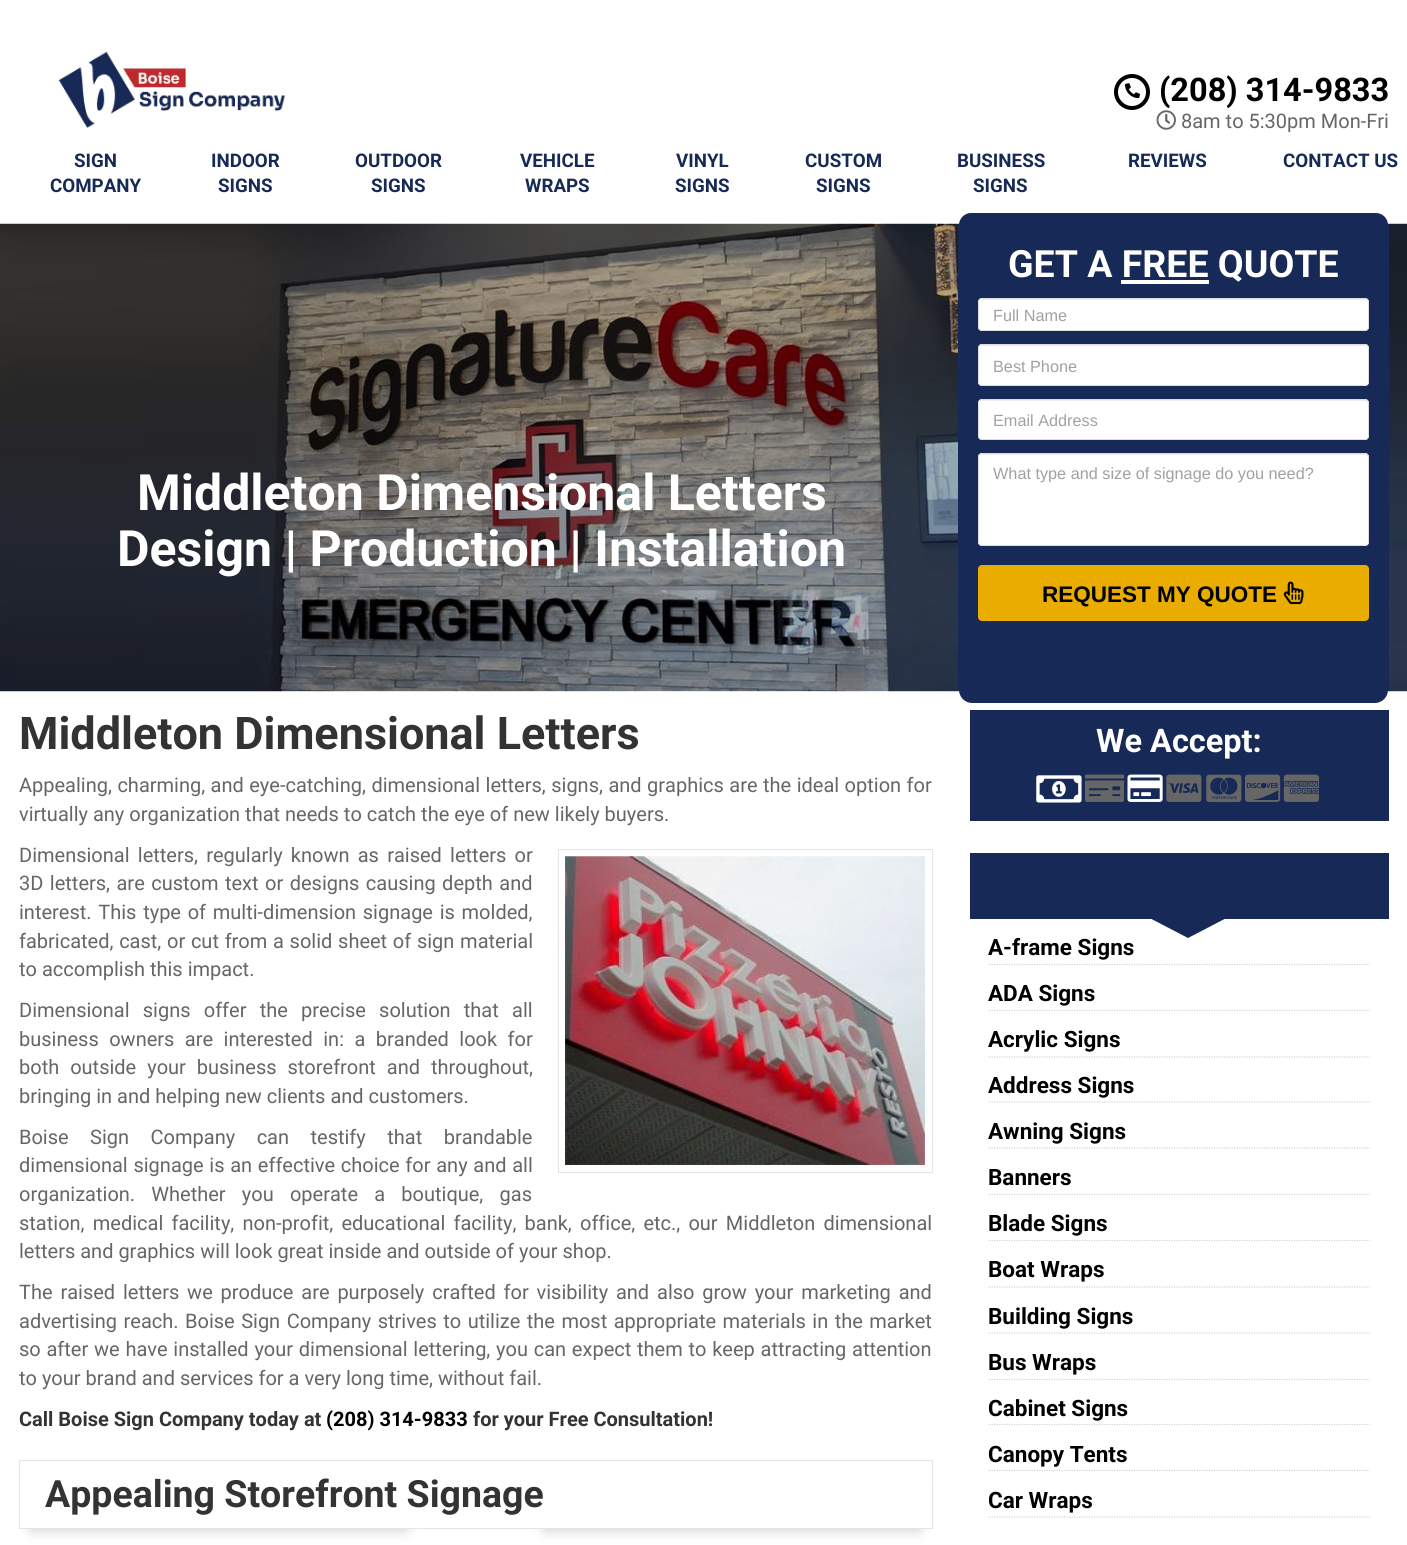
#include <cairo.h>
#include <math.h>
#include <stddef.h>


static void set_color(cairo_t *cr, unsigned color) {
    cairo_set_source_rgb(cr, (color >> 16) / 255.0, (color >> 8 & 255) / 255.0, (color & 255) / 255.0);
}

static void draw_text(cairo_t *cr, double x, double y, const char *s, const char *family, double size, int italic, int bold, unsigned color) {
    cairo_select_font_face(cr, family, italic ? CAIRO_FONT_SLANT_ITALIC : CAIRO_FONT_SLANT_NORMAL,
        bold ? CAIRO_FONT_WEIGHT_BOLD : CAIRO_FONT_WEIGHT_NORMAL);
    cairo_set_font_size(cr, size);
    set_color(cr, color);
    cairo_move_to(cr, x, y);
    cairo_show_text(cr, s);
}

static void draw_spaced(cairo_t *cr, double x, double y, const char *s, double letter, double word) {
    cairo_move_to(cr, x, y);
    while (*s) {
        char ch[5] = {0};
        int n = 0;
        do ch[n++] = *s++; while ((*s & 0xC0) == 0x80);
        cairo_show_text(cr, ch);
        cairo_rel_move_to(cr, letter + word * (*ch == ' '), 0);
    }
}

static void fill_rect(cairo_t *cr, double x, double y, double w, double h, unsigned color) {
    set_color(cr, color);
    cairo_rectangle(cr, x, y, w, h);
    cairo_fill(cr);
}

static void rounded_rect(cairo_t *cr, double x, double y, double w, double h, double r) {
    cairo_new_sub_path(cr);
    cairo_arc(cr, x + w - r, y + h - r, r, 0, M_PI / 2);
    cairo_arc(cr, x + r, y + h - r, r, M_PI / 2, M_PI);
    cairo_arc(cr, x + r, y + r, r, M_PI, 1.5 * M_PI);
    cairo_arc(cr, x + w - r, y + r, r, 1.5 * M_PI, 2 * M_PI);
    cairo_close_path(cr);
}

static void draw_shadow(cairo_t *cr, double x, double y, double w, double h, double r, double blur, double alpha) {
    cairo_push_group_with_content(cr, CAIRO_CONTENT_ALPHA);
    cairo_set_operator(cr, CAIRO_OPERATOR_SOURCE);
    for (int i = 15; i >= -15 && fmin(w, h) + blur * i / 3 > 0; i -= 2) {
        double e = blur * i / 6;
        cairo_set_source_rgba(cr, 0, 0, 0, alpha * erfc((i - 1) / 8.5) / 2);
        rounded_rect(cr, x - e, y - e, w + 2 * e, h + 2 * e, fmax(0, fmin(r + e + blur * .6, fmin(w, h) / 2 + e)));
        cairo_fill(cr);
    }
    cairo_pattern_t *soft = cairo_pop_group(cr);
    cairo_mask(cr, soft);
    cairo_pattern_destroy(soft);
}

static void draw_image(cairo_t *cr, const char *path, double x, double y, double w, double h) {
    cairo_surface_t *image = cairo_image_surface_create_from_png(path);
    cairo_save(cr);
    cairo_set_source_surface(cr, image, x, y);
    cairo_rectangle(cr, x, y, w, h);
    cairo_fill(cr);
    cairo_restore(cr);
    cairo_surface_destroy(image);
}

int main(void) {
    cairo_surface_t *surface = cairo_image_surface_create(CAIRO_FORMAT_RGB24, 1407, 1545);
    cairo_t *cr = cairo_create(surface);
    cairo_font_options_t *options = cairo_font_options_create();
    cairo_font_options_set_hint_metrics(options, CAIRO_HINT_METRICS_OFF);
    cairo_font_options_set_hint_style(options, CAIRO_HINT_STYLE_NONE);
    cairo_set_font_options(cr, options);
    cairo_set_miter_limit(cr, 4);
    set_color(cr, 0xFFFFFF);
    cairo_paint(cr);
    draw_image(cr, "assets/img1.png", 58, 51, 228, 78);
    cairo_arc(cr, 1132, 92, 16, 0, 2 * M_PI);
    set_color(cr, 0x000000);
    cairo_set_line_width(cr, 4);
    cairo_stroke(cr);
    draw_image(cr, "assets/img2.png", 1125, 83, 15, 16);
    draw_text(cr, 1159, 101, "(208) 314-9833", "Roboto", 32.5, 0, 1, 0x000000);
    draw_image(cr, "assets/img3.png", 1156, 110, 20, 20);
    draw_text(cr, 1181, 128, "8am to 5:30pm Mon-Fri", "Roboto", 20, 0, 0, 0x666666);
    draw_text(cr, 74, 167, "SIGN", "Roboto", 18.75, 0, 1, 0x172956);
    draw_text(cr, 50, 192, "COMPANY", "Roboto", 18.75, 0, 1, 0x172956);
    draw_text(cr, 211, 167, "INDOOR", "Roboto", 18.75, 0, 1, 0x172956);
    draw_text(cr, 218, 192, "SIGNS", "Roboto", 18.75, 0, 1, 0x172956);
    draw_text(cr, 355, 167, "OUTDOOR", "Roboto", 18.75, 0, 1, 0x172956);
    draw_text(cr, 371, 192, "SIGNS", "Roboto", 18.75, 0, 1, 0x172956);
    draw_text(cr, 520, 167, "VEHICLE", "Roboto", 18.75, 0, 1, 0x172956);
    draw_text(cr, 525, 192, "WRAPS", "Roboto", 18.75, 0, 1, 0x172956);
    draw_text(cr, 676, 167, "VINYL", "Roboto", 18.75, 0, 1, 0x172956);
    draw_text(cr, 675, 192, "SIGNS", "Roboto", 18.75, 0, 1, 0x172956);
    draw_text(cr, 805, 167, "CUSTOM", "Roboto", 18.75, 0, 1, 0x172956);
    draw_text(cr, 816, 192, "SIGNS", "Roboto", 18.75, 0, 1, 0x172956);
    draw_text(cr, 957, 167, "BUSINESS", "Roboto", 18.75, 0, 1, 0x172956);
    draw_text(cr, 973, 192, "SIGNS", "Roboto", 18.75, 0, 1, 0x172956);
    draw_text(cr, 1128, 167, "REVIEWS", "Roboto", 18.75, 0, 1, 0x172956);
    draw_text(cr, 1283, 167, "CONTACT US", "Roboto", 18.75, 0, 1, 0x172956);
    draw_image(cr, "assets/img4.png", 0, 223, 1407, 469);
    draw_text(cr, 137, 510, "Middleton Dimensional Letters", "Roboto", 50, 0, 1, 0xFFFFFF);
    draw_text(cr, 117, 566, "Design | Production | Installation", "Roboto", 50, 0, 1, 0xFFFFFF);
    fill_rect(cr, 958, 224, 431, 467, 0x172956);
    cairo_new_path(cr);
    cairo_move_to(cr, 971, 213);
    cairo_line_to(cr, 1376, 213);
    cairo_curve_to(cr, 1382.5, 213, 1388, 218.5, 1388, 225);
    cairo_line_to(cr, 959, 225);
    cairo_curve_to(cr, 959, 218.5, 964.5, 213, 971, 213);
    cairo_close_path(cr);
    cairo_fill(cr);
    draw_text(cr, 1008, 277, "GET A FREE QUOTE", "Roboto", 37.5, 0, 1, 0xFFFFFF);
    fill_rect(cr, 1121, 280, 88, 4, 0xFFFFFF);
    rounded_rect(cr, 978, 298, 391, 33, 4);
    cairo_fill(cr);
    set_color(cr, 0xECECEC);
    cairo_new_path(cr);
    cairo_move_to(cr, 981, 300);
    cairo_line_to(cr, 1365, 300);
    cairo_curve_to(cr, 1366, 300, 1368, 301, 1368, 302);
    cairo_curve_to(cr, 1368, 300, 1367, 299, 1366, 299);
    cairo_line_to(cr, 982, 299);
    cairo_line_to(cr, 980, 300);
    cairo_line_to(cr, 979, 302);
    cairo_curve_to(cr, 979, 301, 980, 300, 981, 300);
    cairo_close_path(cr);
    cairo_fill(cr);
    rounded_rect(cr, 978.5, 298.5, 390, 32, 3.5);
    set_color(cr, 0xDDDDDD);
    cairo_set_line_width(cr, 1);
    cairo_stroke(cr);
    draw_text(cr, 993, 321, "Full Name", "Liberation Sans", 16.25, 0, 0, 0xA1A1A1);
    set_color(cr, 0xFFFFFF);
    rounded_rect(cr, 978, 344, 391, 42, 4);
    cairo_fill(cr);
    set_color(cr, 0xECECEC);
    cairo_new_path(cr);
    cairo_move_to(cr, 981, 346);
    cairo_line_to(cr, 1365, 346);
    cairo_curve_to(cr, 1366, 346, 1368, 347, 1368, 349);
    cairo_line_to(cr, 1368, 346);
    cairo_line_to(cr, 1366, 345);
    cairo_line_to(cr, 982, 345);
    cairo_curve_to(cr, 979, 345, 979, 347, 979, 349);
    cairo_curve_to(cr, 979, 347, 980, 346, 981, 346);
    cairo_close_path(cr);
    cairo_fill(cr);
    rounded_rect(cr, 978.5, 344.5, 390, 41, 3.5);
    set_color(cr, 0xDDDDDD);
    cairo_stroke(cr);
    draw_text(cr, 993, 372, "Best Phone", "Liberation Sans", 16.25, 0, 0, 0xA1A1A1);
    set_color(cr, 0xFFFFFF);
    rounded_rect(cr, 978, 399, 391, 41, 4);
    cairo_fill(cr);
    set_color(cr, 0xECECEC);
    cairo_new_path(cr);
    cairo_move_to(cr, 981, 401);
    cairo_line_to(cr, 1365, 401);
    cairo_curve_to(cr, 1366, 401, 1368, 402, 1368, 404);
    cairo_line_to(cr, 1368, 401);
    cairo_line_to(cr, 1366, 400);
    cairo_line_to(cr, 982, 400);
    cairo_curve_to(cr, 979, 400, 979, 402, 979, 404);
    cairo_curve_to(cr, 979, 402, 980, 401, 981, 401);
    cairo_close_path(cr);
    cairo_fill(cr);
    rounded_rect(cr, 978.5, 399.5, 390, 40, 3.5);
    set_color(cr, 0xDDDDDD);
    cairo_stroke(cr);
    draw_text(cr, 993, 426, "Email Address", "Liberation Sans", 16.25, 0, 0, 0xA1A1A1);
    set_color(cr, 0xFFFFFF);
    rounded_rect(cr, 978, 453, 391, 93, 4);
    cairo_fill(cr);
    set_color(cr, 0xECECEC);
    cairo_new_path(cr);
    cairo_move_to(cr, 981, 455);
    cairo_line_to(cr, 1365, 455);
    cairo_curve_to(cr, 1366, 455, 1368, 456, 1368, 458);
    cairo_line_to(cr, 1368, 455);
    cairo_line_to(cr, 1366, 454);
    cairo_line_to(cr, 982, 454);
    cairo_curve_to(cr, 979, 454, 979, 456, 979, 458);
    cairo_curve_to(cr, 979, 456, 980, 455, 981, 455);
    cairo_close_path(cr);
    cairo_fill(cr);
    rounded_rect(cr, 978.5, 453.5, 390, 92, 3.5);
    set_color(cr, 0xDDDDDD);
    cairo_stroke(cr);
    draw_text(cr, 993, 479, "What type and size of signage do you need?", "Liberation Sans", 16.25, 0, 0, 0xA1A1A1);
    set_color(cr, 0xEBAC00);
    rounded_rect(cr, 978, 565, 391, 56, 4);
    cairo_fill(cr);
    draw_text(cr, 1042, 602, "REQUEST MY QUOTE", "Liberation Sans", 22.5, 0, 1, 0x000000);
    draw_image(cr, "assets/img5.png", 1283, 581, 21, 24);
    set_color(cr, 0x172956);
    cairo_new_path(cr);
    cairo_move_to(cr, 959, 690);
    cairo_line_to(cr, 1388, 690);
    cairo_curve_to(cr, 1388, 697, 1382, 703, 1375, 703);
    cairo_line_to(cr, 972, 703);
    cairo_curve_to(cr, 965, 703, 959, 697, 959, 690);
    cairo_close_path(cr);
    cairo_fill(cr);
    draw_text(cr, 19, 749, "Middleton Dimensional Letters", "Roboto", 45, 0, 1, 0x333333);
    cairo_select_font_face(cr, "Roboto", CAIRO_FONT_SLANT_NORMAL, CAIRO_FONT_WEIGHT_NORMAL);
    cairo_set_font_size(cr, 20);
    set_color(cr, 0x666666);
    draw_spaced(cr, 19, 792, "Appealing, charming, and eye-catching, dimensional letters, signs, and graphics are the ideal option for", 0, 0.5);
    draw_text(cr, 19, 821, "virtually any organization that needs to catch the eye of new likely buyers.", "Roboto", 20, 0, 0, 0x666666);
    draw_spaced(cr, 19, 862, "Dimensional letters, regularly known as raised letters or", 0, 3.25);
    draw_spaced(cr, 19, 890, "3D letters, are custom text or designs causing depth and", 0, 1.5);
    draw_spaced(cr, 19, 919, "interest. This type of multi-dimension signage is molded,", 0, 1.75);
    draw_spaced(cr, 19, 948, "fabricated, cast, or cut from a solid sheet of sign material", 0, 0.75);
    draw_text(cr, 19, 976, "to accomplish this impact.", "Roboto", 20, 0, 0, 0x666666);
    cairo_rectangle(cr, 558.5, 849.5, 374, 323);
    set_color(cr, 0xE4E4E4);
    cairo_stroke(cr);
    draw_image(cr, "assets/img6.png", 565, 856, 360, 309);
    set_color(cr, 0x666666);
    draw_spaced(cr, 19, 1017, "Dimensional signs offer the precise solution that all", 0, 8.25);
    draw_spaced(cr, 19, 1046, "business owners are interested in: a branded look for", 0, 5.5);
    draw_spaced(cr, 19, 1074, "both outside your business storefront and throughout,", 0, 6);
    draw_text(cr, 19, 1103, "bringing in and helping new clients and customers.", "Roboto", 20, 0, 0, 0x666666);
    draw_spaced(cr, 19, 1144, "Boise Sign Company can testify that brandable", 0, 16.5);
    draw_spaced(cr, 19, 1172, "dimensional signage is an effective choice for any and all", 0, 0.75);
    draw_spaced(cr, 19, 1201, "organization. Whether you operate a boutique, gas", 0, 11.25);
    draw_spaced(cr, 19, 1230, "station, medical facility, non-profit, educational facility, bank, office, etc., our Middleton dimensional", 0, 3.25);
    draw_text(cr, 19, 1258, "letters and graphics will look great inside and outside of your shop.", "Roboto", 20, 0, 0, 0x666666);
    draw_spaced(cr, 19, 1299, "The raised letters we produce are purposely crafted for visibility and also grow your marketing and", 0, 2.9);
    draw_spaced(cr, 19, 1328, "advertising reach. Boise Sign Company strives to utilize the most appropriate materials in the market", 0, 1.5);
    draw_spaced(cr, 19, 1356, "so after we have installed your dimensional lettering, you can expect them to keep attracting attention", 0, 0.8);
    draw_text(cr, 19, 1385, "to your brand and services for a very long time, without fail.", "Roboto", 20, 0, 0, 0x666666);
    draw_text(cr, 19, 1426, "Call Boise Sign Company today at", "Roboto", 20, 0, 1, 0x333333);
    draw_text(cr, 326, 1426, "(208) 314-9833", "Roboto", 20, 0, 1, 0x000000);
    draw_text(cr, 473, 1426, "for your Free Consultation!", "Roboto", 20, 0, 1, 0x333333);
    set_color(cr, 0x000000);
    draw_shadow(cr, 31, 1479, 375, 51, 0, 6.5, 0.2);
    draw_shadow(cr, 545, 1479, 375, 51, 0, 6.5, 0.2);
    fill_rect(cr, 20, 1468, 911, 60, 0xFFFFFF);
    cairo_rectangle(cr, 19.5, 1460.5, 913, 68);
    set_color(cr, 0xE4E4E4);
    cairo_stroke(cr);
    draw_text(cr, 45, 1507, "Appealing Storefront Signage", "Roboto", 37.5, 0, 1, 0x333333);
    fill_rect(cr, 970, 710, 419, 111, 0x172956);
    draw_text(cr, 1096, 752, "We Accept:", "Roboto", 32.5, 0, 1, 0xFFFFFF);
    draw_image(cr, "assets/img7.png", 1036, 775, 46, 28);
    draw_image(cr, "assets/img8.png", 1085, 774, 40, 28);
    draw_image(cr, "assets/img9.png", 1127, 774, 36, 28);
    draw_image(cr, "assets/img10.png", 1166, 774, 36, 28);
    draw_image(cr, "assets/img11.png", 1206, 774, 36, 28);
    draw_image(cr, "assets/img12.png", 1245, 774, 36, 28);
    draw_image(cr, "assets/img13.png", 1283, 774, 36, 28);
    fill_rect(cr, 970, 853, 419, 66, 0x172956);
    cairo_new_path(cr);
    cairo_move_to(cr, 1138, 912);
    cairo_line_to(cr, 1238, 912);
    cairo_line_to(cr, 1188, 938);
    cairo_close_path(cr);
    cairo_fill(cr);
    cairo_new_path(cr);
    cairo_move_to(cr, 989, 964.5);
    cairo_line_to(cr, 1370, 964.5);
    set_color(cr, 0xD3D3D3);
    cairo_set_line_width(cr, 1.2);
    cairo_set_dash(cr, (double[]){1.25, 1.25}, 2, 0);
    cairo_stroke(cr);
    draw_text(cr, 988, 955, "A-frame Signs", "Roboto", 22.5, 0, 1, 0x000000);
    cairo_new_path(cr);
    cairo_move_to(cr, 989, 1010.5);
    cairo_line_to(cr, 1370, 1010.5);
    set_color(cr, 0xD3D3D3);
    cairo_stroke(cr);
    draw_text(cr, 988, 1001, "ADA Signs", "Roboto", 22.5, 0, 1, 0x000000);
    cairo_new_path(cr);
    cairo_move_to(cr, 989, 1057);
    cairo_line_to(cr, 1370, 1057);
    set_color(cr, 0xD3D3D3);
    cairo_stroke(cr);
    draw_text(cr, 988, 1047, "Acrylic Signs", "Roboto", 22.5, 0, 1, 0x000000);
    cairo_new_path(cr);
    cairo_move_to(cr, 989, 1102);
    cairo_line_to(cr, 1370, 1102);
    set_color(cr, 0xD3D3D3);
    cairo_stroke(cr);
    draw_text(cr, 988, 1093, "Address Signs", "Roboto", 22.5, 0, 1, 0x000000);
    cairo_new_path(cr);
    cairo_move_to(cr, 989, 1148);
    cairo_line_to(cr, 1370, 1148);
    set_color(cr, 0xD3D3D3);
    cairo_stroke(cr);
    draw_text(cr, 988, 1139, "Awning Signs", "Roboto", 22.5, 0, 1, 0x000000);
    cairo_new_path(cr);
    cairo_move_to(cr, 989, 1194.5);
    cairo_line_to(cr, 1370, 1194.5);
    set_color(cr, 0xD3D3D3);
    cairo_stroke(cr);
    draw_text(cr, 988, 1185, "Banners", "Roboto", 22.5, 0, 1, 0x000000);
    cairo_new_path(cr);
    cairo_move_to(cr, 989, 1240.5);
    cairo_line_to(cr, 1370, 1240.5);
    set_color(cr, 0xD3D3D3);
    cairo_stroke(cr);
    draw_text(cr, 988, 1231, "Blade Signs", "Roboto", 22.5, 0, 1, 0x000000);
    cairo_new_path(cr);
    cairo_move_to(cr, 989, 1287);
    cairo_line_to(cr, 1370, 1287);
    set_color(cr, 0xD3D3D3);
    cairo_stroke(cr);
    draw_text(cr, 988, 1277, "Boat Wraps", "Roboto", 22.5, 0, 1, 0x000000);
    cairo_new_path(cr);
    cairo_move_to(cr, 989, 1333);
    cairo_line_to(cr, 1370, 1333);
    set_color(cr, 0xD3D3D3);
    cairo_stroke(cr);
    draw_text(cr, 988, 1324, "Building Signs", "Roboto", 22.5, 0, 1, 0x000000);
    cairo_new_path(cr);
    cairo_move_to(cr, 989, 1379.5);
    cairo_line_to(cr, 1370, 1379.5);
    set_color(cr, 0xD3D3D3);
    cairo_stroke(cr);
    draw_text(cr, 988, 1370, "Bus Wraps", "Roboto", 22.5, 0, 1, 0x000000);
    cairo_new_path(cr);
    cairo_move_to(cr, 989, 1424.5);
    cairo_line_to(cr, 1370, 1424.5);
    set_color(cr, 0xD3D3D3);
    cairo_stroke(cr);
    draw_text(cr, 988, 1416, "Cabinet Signs", "Roboto", 22.5, 0, 1, 0x000000);
    cairo_new_path(cr);
    cairo_move_to(cr, 989, 1470.5);
    cairo_line_to(cr, 1370, 1470.5);
    set_color(cr, 0xD3D3D3);
    cairo_stroke(cr);
    draw_text(cr, 988, 1462, "Canopy Tents", "Roboto", 22.5, 0, 1, 0x000000);
    cairo_new_path(cr);
    cairo_move_to(cr, 989, 1517);
    cairo_line_to(cr, 1370, 1517);
    set_color(cr, 0xD3D3D3);
    cairo_stroke(cr);
    draw_text(cr, 988, 1508, "Car Wraps", "Roboto", 22.5, 0, 1, 0x000000);
    cairo_surface_write_to_png(surface, "output.png");
    cairo_font_options_destroy(options);
    cairo_destroy(cr);
    cairo_surface_destroy(surface);
    return 0;
}
